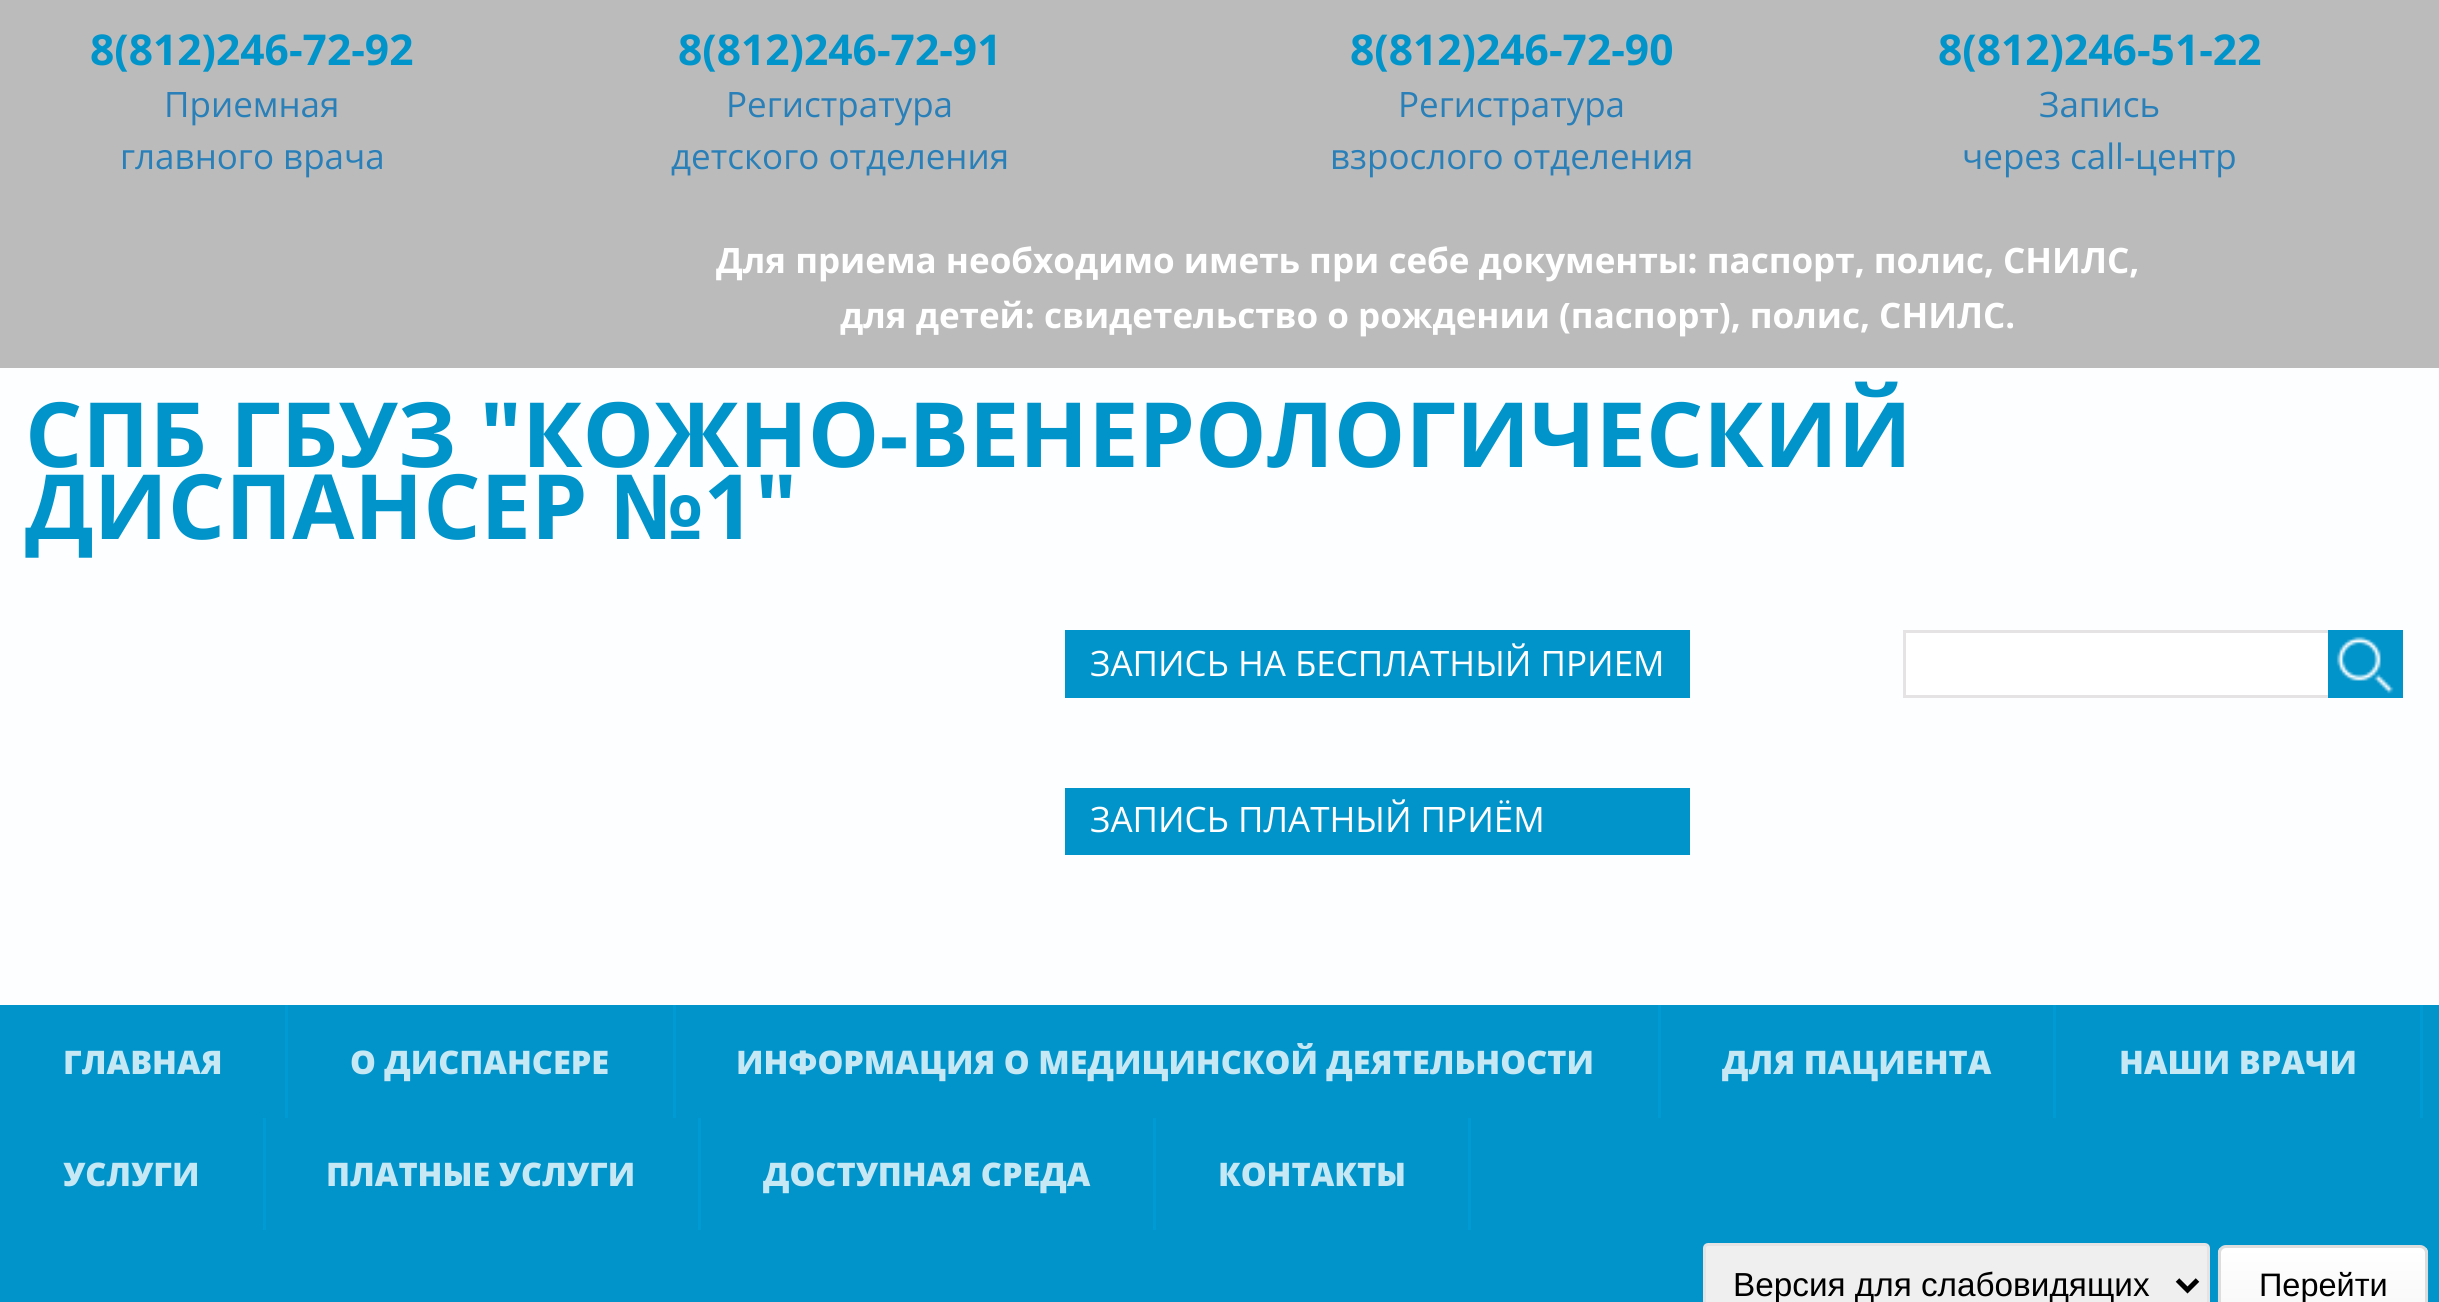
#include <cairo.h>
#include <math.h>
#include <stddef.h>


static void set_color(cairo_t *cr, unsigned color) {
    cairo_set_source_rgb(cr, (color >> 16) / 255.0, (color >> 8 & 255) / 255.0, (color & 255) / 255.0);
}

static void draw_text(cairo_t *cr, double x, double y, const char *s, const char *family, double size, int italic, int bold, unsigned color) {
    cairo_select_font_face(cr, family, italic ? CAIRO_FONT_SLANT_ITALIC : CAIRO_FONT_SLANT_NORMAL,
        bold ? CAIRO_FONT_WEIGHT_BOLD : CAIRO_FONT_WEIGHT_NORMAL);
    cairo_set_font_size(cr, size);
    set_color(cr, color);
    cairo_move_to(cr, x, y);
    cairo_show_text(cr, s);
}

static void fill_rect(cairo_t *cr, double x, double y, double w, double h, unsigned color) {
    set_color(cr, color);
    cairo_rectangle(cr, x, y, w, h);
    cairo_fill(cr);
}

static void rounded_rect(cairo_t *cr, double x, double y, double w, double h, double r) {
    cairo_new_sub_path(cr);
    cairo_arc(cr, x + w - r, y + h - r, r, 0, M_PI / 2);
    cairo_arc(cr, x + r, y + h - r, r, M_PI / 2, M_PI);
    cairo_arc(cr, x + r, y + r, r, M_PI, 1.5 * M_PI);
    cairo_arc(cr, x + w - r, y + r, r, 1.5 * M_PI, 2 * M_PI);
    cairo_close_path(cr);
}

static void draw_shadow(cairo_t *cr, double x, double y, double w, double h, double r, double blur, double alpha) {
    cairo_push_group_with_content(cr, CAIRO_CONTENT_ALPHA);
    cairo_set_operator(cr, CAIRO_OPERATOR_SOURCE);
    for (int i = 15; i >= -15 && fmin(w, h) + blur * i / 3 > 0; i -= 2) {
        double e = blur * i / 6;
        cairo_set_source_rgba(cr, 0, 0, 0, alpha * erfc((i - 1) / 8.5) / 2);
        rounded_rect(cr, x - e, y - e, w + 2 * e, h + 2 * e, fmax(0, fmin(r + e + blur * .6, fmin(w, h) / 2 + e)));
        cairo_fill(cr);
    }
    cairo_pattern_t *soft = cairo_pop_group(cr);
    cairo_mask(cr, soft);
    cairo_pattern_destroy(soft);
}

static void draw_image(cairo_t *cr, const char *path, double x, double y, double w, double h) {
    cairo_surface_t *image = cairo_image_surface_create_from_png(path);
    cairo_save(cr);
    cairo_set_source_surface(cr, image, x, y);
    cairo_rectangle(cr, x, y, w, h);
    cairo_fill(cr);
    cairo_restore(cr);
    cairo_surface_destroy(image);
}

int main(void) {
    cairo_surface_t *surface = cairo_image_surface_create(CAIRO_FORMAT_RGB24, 2439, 1302);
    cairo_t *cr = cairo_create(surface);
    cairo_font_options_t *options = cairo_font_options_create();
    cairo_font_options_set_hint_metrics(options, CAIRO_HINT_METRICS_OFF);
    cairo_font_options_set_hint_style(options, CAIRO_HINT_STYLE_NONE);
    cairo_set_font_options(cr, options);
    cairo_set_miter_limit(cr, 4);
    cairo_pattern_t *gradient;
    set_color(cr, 0xFCFEFF);
    cairo_paint(cr);
    fill_rect(cr, 0, 0, 2439, 368, 0xBBBBBB);
    draw_text(cr, 90, 65, "8(812)246-72-92", "Open Sans", 42.5, 0, 1, 0x0194CA);
    draw_text(cr, 164, 117, "Приемная", "Open Sans", 35, 0, 0, 0x2980B9);
    draw_text(cr, 120, 169, "главного врача", "Open Sans", 35, 0, 0, 0x2980B9);
    draw_text(cr, 678, 65, "8(812)246-72-91", "Open Sans", 42.5, 0, 1, 0x0194CA);
    draw_text(cr, 726, 117, "Регистратура", "Open Sans", 35, 0, 0, 0x2980B9);
    draw_text(cr, 671, 169, "детского отделения", "Open Sans", 35, 0, 0, 0x2980B9);
    draw_text(cr, 1350, 65, "8(812)246-72-90", "Open Sans", 42.5, 0, 1, 0x0194CA);
    draw_text(cr, 1398, 117, "Регистратура", "Open Sans", 35, 0, 0, 0x2980B9);
    draw_text(cr, 1330, 169, "взрослого отделения", "Open Sans", 35, 0, 0, 0x2980B9);
    draw_text(cr, 1938, 65, "8(812)246-51-22", "Open Sans", 42.5, 0, 1, 0x0194CA);
    draw_text(cr, 2039, 117, "Запись", "Open Sans", 35, 0, 0, 0x2980B9);
    draw_text(cr, 1962, 169, "через call-центр", "Open Sans", 35, 0, 0, 0x2980B9);
    draw_text(cr, 716, 273, "Для приема необходимо иметь при себе документы: паспорт, полис, СНИЛС,", "Open Sans", 35, 0, 1, 0xFFFFFF);
    draw_text(cr, 840, 328, "для детей: свидетельство о рождении (паспорт), полис, СНИЛC.", "Open Sans", 35, 0, 1, 0xFFFFFF);
    draw_text(cr, 25, 467, "СПБ ГБУЗ \"КОЖНО-ВЕНЕРОЛОГИЧЕСКИЙ", "Open Sans", 90, 0, 1, 0x0194CA);
    draw_text(cr, 25, 539, "ДИСПАНСЕР №1\"", "Open Sans", 90, 0, 1, 0x0194CA);
    fill_rect(cr, 1065, 630, 625, 68, 0x0194CA);
    draw_text(cr, 1090, 676, "ЗАПИСЬ НА БЕСПЛАТНЫЙ ПРИЕМ", "Open Sans", 35, 0, 0, 0xFFFFFF);
    fill_rect(cr, 1065, 788, 625, 67, 0x0194CA);
    draw_text(cr, 1090, 832, "ЗАПИСЬ ПЛАТНЫЙ ПРИЁМ", "Open Sans", 35, 0, 0, 0xFFFFFF);
    fill_rect(cr, 1906, 633, 422, 62, 0xFFFFFF);
    cairo_rectangle(cr, 1904.5, 631.5, 497, 65);
    set_color(cr, 0xE5E3E3);
    cairo_set_line_width(cr, 3);
    cairo_stroke(cr);
    fill_rect(cr, 2328, 630, 75, 68, 0x0194CA);
    draw_image(cr, "assets/img1.png", 2336, 636, 58, 58);
    fill_rect(cr, 0, 1005, 2439, 297, 0x0194CA);
    fill_rect(cr, 285, 1005, 3, 113, 0x009BD3);
    draw_text(cr, 63, 1074, "ГЛАВНАЯ", "Open Sans ExtraBold", 32.5, 0, 0, 0xC6E7F4);
    fill_rect(cr, 673, 1005, 3, 113, 0x009BD3);
    draw_text(cr, 350, 1074, "О ДИСПАНСЕРЕ", "Open Sans ExtraBold", 32.5, 0, 0, 0xC6E7F4);
    fill_rect(cr, 1658, 1005, 3, 113, 0x009BD3);
    draw_text(cr, 736, 1074, "ИНФОРМАЦИЯ О МЕДИЦИНСКОЙ ДЕЯТЕЛЬНОСТИ", "Open Sans ExtraBold", 32.5, 0, 0, 0xC6E7F4);
    fill_rect(cr, 2053, 1005, 3, 113, 0x009BD3);
    draw_text(cr, 1722, 1074, "ДЛЯ ПАЦИЕНТА", "Open Sans ExtraBold", 32.5, 0, 0, 0xC6E7F4);
    fill_rect(cr, 2420, 1005, 3, 113, 0x009BD3);
    draw_text(cr, 2119, 1074, "НАШИ ВРАЧИ", "Open Sans ExtraBold", 32.5, 0, 0, 0xC6E7F4);
    fill_rect(cr, 263, 1118, 3, 112, 0x009BD3);
    draw_text(cr, 63, 1186, "УСЛУГИ", "Open Sans ExtraBold", 32.5, 0, 0, 0xC6E7F4);
    fill_rect(cr, 698, 1118, 3, 112, 0x009BD3);
    draw_text(cr, 326, 1186, "ПЛАТНЫЕ УСЛУГИ", "Open Sans ExtraBold", 32.5, 0, 0, 0xC6E7F4);
    fill_rect(cr, 1153, 1118, 3, 112, 0x009BD3);
    draw_text(cr, 763, 1186, "ДОСТУПНАЯ СРЕДА", "Open Sans ExtraBold", 32.5, 0, 0, 0xC6E7F4);
    fill_rect(cr, 1468, 1118, 3, 112, 0x009BD3);
    draw_text(cr, 1218, 1186, "КОНТАКТЫ", "Open Sans ExtraBold", 32.5, 0, 0, 0xC6E7F4);
    set_color(cr, 0xEFEFEF);
    rounded_rect(cr, 1704.5, 1244.5, 504, 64, 3.5);
    cairo_fill_preserve(cr);
    set_color(cr, 0xE5E3E3);
    cairo_stroke(cr);
    cairo_new_path(cr);
    cairo_move_to(cr, 2177.5, 1280);
    cairo_line_to(cr, 2187.5, 1290);
    cairo_line_to(cr, 2197.5, 1280);
    set_color(cr, 0x000000);
    cairo_set_line_width(cr, 5);
    cairo_stroke(cr);
    draw_text(cr, 1733, 1296, "Версия для слабовидящих", "Liberation Sans", 33.3, 0, 0, 0x000000);
    set_color(cr, 0xB4B4B4);
    draw_shadow(cr, 2218, 1248, 210, 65, 8, 1, 0.2);
    cairo_save(cr);
    rounded_rect(cr, 2218, 1245, 210, 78, 8);
    cairo_clip(cr);
    gradient = cairo_pattern_create_linear(2323, 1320, 2323, 1248);
    cairo_pattern_add_color_stop_rgba(gradient, 0, 0.969, 0.969, 0.969, 1);
    cairo_pattern_add_color_stop_rgba(gradient, 1, 1, 1, 1, 1);
    cairo_set_source(cr, gradient);
    cairo_pattern_destroy(gradient);
    cairo_rectangle(cr, 2218, 1248, 210, 54);
    cairo_fill(cr);
    cairo_restore(cr);
    rounded_rect(cr, 2219.5, 1246.5, 207, 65, 6.5);
    set_color(cr, 0xDDDDDD);
    cairo_set_line_width(cr, 3);
    cairo_stroke(cr);
    draw_text(cr, 2259, 1296, "Перейти", "Liberation Sans", 32.5, 0, 0, 0x000000);
    cairo_surface_write_to_png(surface, "output.png");
    cairo_font_options_destroy(options);
    cairo_destroy(cr);
    cairo_surface_destroy(surface);
    return 0;
}
